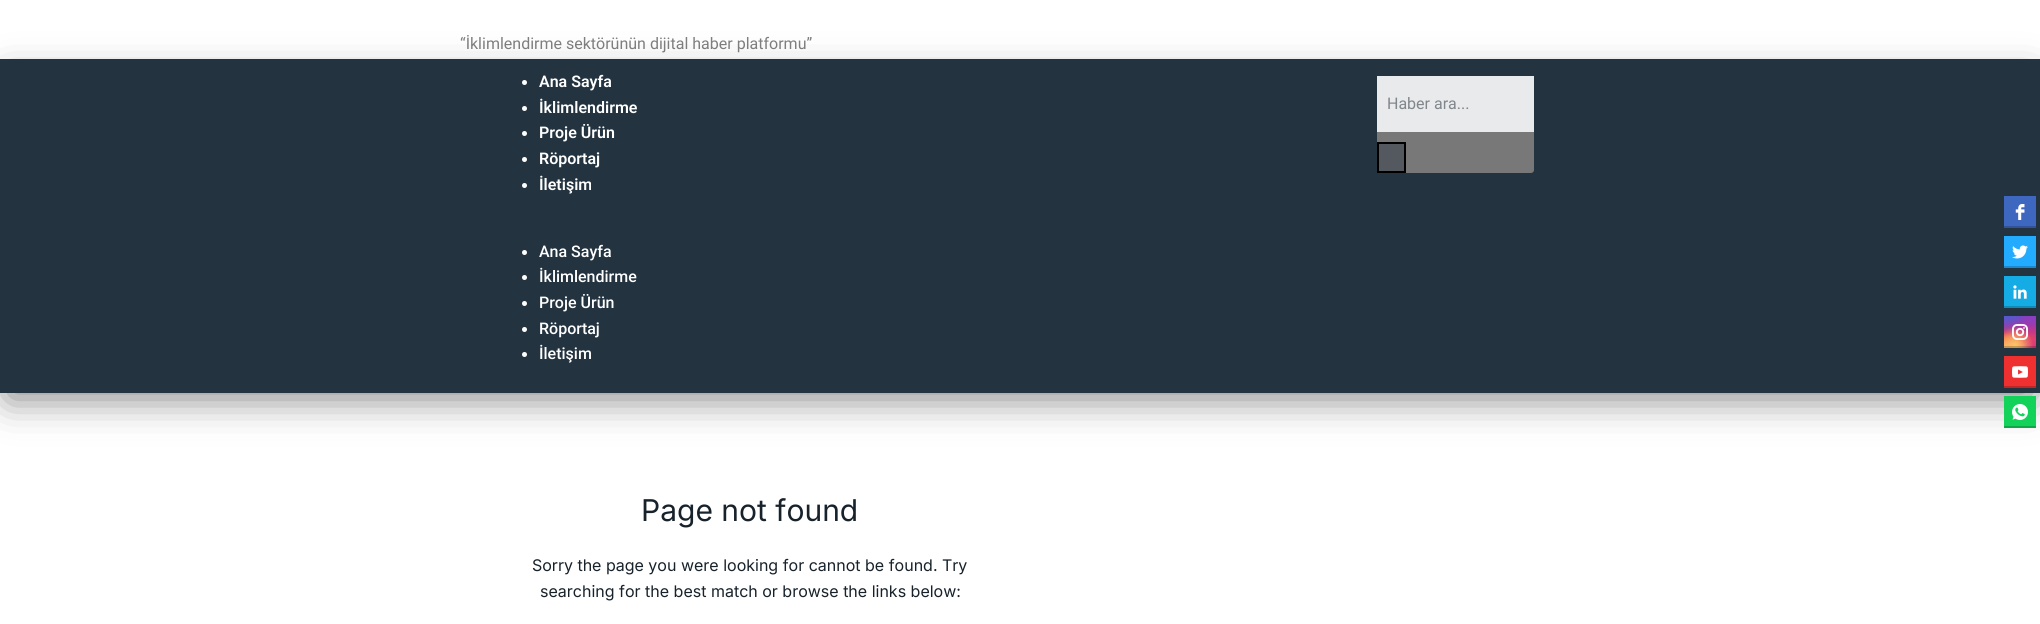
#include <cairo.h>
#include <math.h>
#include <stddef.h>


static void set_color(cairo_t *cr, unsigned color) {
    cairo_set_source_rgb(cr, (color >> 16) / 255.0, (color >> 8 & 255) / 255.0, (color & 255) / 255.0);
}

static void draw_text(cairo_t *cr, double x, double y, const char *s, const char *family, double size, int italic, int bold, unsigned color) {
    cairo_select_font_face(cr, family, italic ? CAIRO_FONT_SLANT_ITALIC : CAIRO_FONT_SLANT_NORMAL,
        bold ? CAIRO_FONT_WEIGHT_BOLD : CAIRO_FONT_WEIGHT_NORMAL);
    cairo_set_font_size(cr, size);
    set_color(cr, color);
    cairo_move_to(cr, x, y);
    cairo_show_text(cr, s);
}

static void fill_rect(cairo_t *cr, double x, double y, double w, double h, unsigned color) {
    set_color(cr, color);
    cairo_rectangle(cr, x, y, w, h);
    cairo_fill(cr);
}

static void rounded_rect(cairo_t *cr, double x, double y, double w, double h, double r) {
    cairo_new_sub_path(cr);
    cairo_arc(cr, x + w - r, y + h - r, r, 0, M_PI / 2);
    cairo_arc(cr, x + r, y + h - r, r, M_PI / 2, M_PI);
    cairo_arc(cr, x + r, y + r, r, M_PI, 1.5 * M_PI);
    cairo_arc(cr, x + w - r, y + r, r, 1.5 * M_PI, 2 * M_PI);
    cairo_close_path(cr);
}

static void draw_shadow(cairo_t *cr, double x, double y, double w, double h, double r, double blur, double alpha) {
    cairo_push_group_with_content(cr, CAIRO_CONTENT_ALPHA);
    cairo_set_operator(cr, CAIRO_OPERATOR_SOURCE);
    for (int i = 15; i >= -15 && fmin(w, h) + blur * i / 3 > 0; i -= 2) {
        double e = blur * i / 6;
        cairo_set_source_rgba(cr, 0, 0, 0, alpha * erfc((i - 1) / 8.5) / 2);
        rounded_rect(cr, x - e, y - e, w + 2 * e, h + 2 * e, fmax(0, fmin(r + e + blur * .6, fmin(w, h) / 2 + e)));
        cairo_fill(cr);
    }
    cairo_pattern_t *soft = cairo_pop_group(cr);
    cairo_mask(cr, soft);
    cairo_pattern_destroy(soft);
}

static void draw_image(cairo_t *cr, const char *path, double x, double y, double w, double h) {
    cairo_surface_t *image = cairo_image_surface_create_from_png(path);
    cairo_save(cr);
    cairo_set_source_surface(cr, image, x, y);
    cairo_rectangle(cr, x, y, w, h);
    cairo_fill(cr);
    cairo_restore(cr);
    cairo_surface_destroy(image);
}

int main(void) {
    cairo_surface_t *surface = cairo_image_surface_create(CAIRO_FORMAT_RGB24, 2040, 624);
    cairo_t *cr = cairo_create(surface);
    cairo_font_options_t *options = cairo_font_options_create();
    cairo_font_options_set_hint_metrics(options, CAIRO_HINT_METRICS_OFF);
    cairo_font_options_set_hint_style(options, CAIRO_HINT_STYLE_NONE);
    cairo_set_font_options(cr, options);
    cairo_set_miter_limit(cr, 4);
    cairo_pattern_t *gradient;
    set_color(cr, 0xFFFFFF);
    cairo_paint(cr);
    draw_text(cr, 460, 49, "“İklimlendirme sektörünün dijital haber platformu”", "Roboto", 16, 0, 0, 0x808080);
    set_color(cr, 0x000000);
    draw_shadow(cr, 8, 80, 2024, 318, 0, 19.5, 0.5);
    fill_rect(cr, 0, 59, 2040, 334, 0x233340);
    set_color(cr, 0xFFFFFF);
    cairo_arc(cr, 524.5, 82.5, 2.5, 0, 2 * M_PI);
    cairo_fill(cr);
    draw_text(cr, 539, 87, "Ana Sayfa", "Roboto SemiBold", 16, 0, 0, 0xFFFFFF);
    cairo_new_path(cr);
    cairo_arc(cr, 524.5, 108.5, 2.5, 0, 2 * M_PI);
    cairo_fill(cr);
    draw_text(cr, 539, 113, "İklimlendirme", "Roboto SemiBold", 16, 0, 0, 0xFFFFFF);
    cairo_new_path(cr);
    cairo_arc(cr, 524.5, 133.5, 2.5, 0, 2 * M_PI);
    cairo_fill(cr);
    draw_text(cr, 539, 138, "Proje Ürün", "Roboto SemiBold", 16, 0, 0, 0xFFFFFF);
    cairo_new_path(cr);
    cairo_arc(cr, 524.5, 159.5, 2.5, 0, 2 * M_PI);
    cairo_fill(cr);
    draw_text(cr, 539, 164, "Röportaj", "Roboto SemiBold", 16, 0, 0, 0xFFFFFF);
    cairo_new_path(cr);
    cairo_arc(cr, 524.5, 185.5, 2.5, 0, 2 * M_PI);
    cairo_fill(cr);
    draw_text(cr, 539, 190, "İletişim", "Roboto SemiBold", 16, 0, 0, 0xFFFFFF);
    cairo_new_path(cr);
    cairo_arc(cr, 524.5, 252.5, 2.5, 0, 2 * M_PI);
    cairo_fill(cr);
    draw_text(cr, 539, 257, "Ana Sayfa", "Roboto Medium", 16, 0, 0, 0xFFFFFF);
    cairo_new_path(cr);
    cairo_arc(cr, 524.5, 277.5, 2.5, 0, 2 * M_PI);
    cairo_fill(cr);
    draw_text(cr, 539, 282, "İklimlendirme", "Roboto Medium", 16, 0, 0, 0xFFFFFF);
    cairo_new_path(cr);
    cairo_arc(cr, 524.5, 303.5, 2.5, 0, 2 * M_PI);
    cairo_fill(cr);
    draw_text(cr, 539, 308, "Proje Ürün", "Roboto Medium", 16, 0, 0, 0xFFFFFF);
    cairo_new_path(cr);
    cairo_arc(cr, 524.5, 329.5, 2.5, 0, 2 * M_PI);
    cairo_fill(cr);
    draw_text(cr, 539, 334, "Röportaj", "Roboto Medium", 16, 0, 0, 0xFFFFFF);
    cairo_new_path(cr);
    cairo_arc(cr, 524.5, 354.5, 2.5, 0, 2 * M_PI);
    cairo_fill(cr);
    draw_text(cr, 539, 359, "İletişim", "Roboto Medium", 16, 0, 0, 0xFFFFFF);
    set_color(cr, 0x787878);
    rounded_rect(cr, 1377, 76, 157, 97, 3);
    cairo_fill(cr);
    fill_rect(cr, 1377, 76, 157, 56, 0xE9EAEB);
    draw_text(cr, 1387, 109, "Haber ara...", "Roboto", 16, 0, 0, 0x80868B);
    set_color(cr, 0x54595F);
    cairo_rectangle(cr, 1378, 143, 27, 29);
    cairo_fill_preserve(cr);
    set_color(cr, 0x000000);
    cairo_stroke(cr);
    fill_rect(cr, 2004, 196, 32, 30, 0x3E68C0);
    fill_rect(cr, 2004, 226, 32, 2, 0x32539A);
    draw_image(cr, "assets/img1.png", 2015, 204, 10, 16);
    fill_rect(cr, 2004, 236, 32, 30, 0x23ABFF);
    fill_rect(cr, 2004, 266, 32, 2, 0x1C89CC);
    draw_image(cr, "assets/img2.png", 2012, 245, 16, 14);
    fill_rect(cr, 2004, 276, 32, 30, 0x15ACE5);
    fill_rect(cr, 2004, 306, 32, 2, 0x118AB7);
    draw_image(cr, "assets/img3.png", 2013, 285, 14, 14);
    gradient = cairo_pattern_create_linear(2020, 316, 2020, 348);
    cairo_pattern_add_color_stop_rgba(gradient, 0, 0.396, 0.349, 0.792, 1);
    cairo_pattern_add_color_stop_rgba(gradient, 0.3, 0.737, 0.192, 0.561, 1);
    cairo_pattern_add_color_stop_rgba(gradient, 0.5, 0.89, 0.247, 0.373, 1);
    cairo_pattern_add_color_stop_rgba(gradient, 0.7, 0.969, 0.463, 0.22, 1);
    cairo_pattern_add_color_stop_rgba(gradient, 1, 0.996, 0.776, 0.427, 1);
    cairo_set_source(cr, gradient);
    cairo_pattern_destroy(gradient);
    cairo_rectangle(cr, 2004, 316, 32, 32);
    cairo_fill(cr);
    gradient = cairo_pattern_create_radial(2036, 348, 0, 2036, 348, 45);
    cairo_pattern_add_color_stop_rgba(gradient, 0, 0.851, 0.192, 0.478, 1);
    cairo_pattern_add_color_stop_rgba(gradient, 1, 0.851, 0.192, 0.478, 0);
    cairo_set_source(cr, gradient);
    cairo_pattern_destroy(gradient);
    cairo_rectangle(cr, 2004, 316, 32, 32);
    cairo_fill(cr);
    gradient = cairo_pattern_create_radial(0, 0, 0, 0, 0, 1);
    cairo_pattern_set_matrix(gradient, &(cairo_matrix_t){1.0 / 27, 0, 0, 1.0 / 54, -1.0 * 2023 / 27, -1.0 * 310 / 54});
    cairo_pattern_add_color_stop_rgba(gradient, 0, 0.537, 0.239, 0.761, 1);
    cairo_pattern_add_color_stop_rgba(gradient, 0.5, 0.537, 0.239, 0.761, 0);
    cairo_set_source(cr, gradient);
    cairo_pattern_destroy(gradient);
    cairo_rectangle(cr, 2012, 316, 23, 20);
    cairo_fill(cr);
    gradient = cairo_pattern_create_radial(2036, 316, 0, 2036, 316, 45);
    cairo_pattern_add_color_stop_rgba(gradient, 0, 0.537, 0.239, 0.761, 1);
    cairo_pattern_add_color_stop_rgba(gradient, 0.5, 0.537, 0.239, 0.761, 0);
    cairo_set_source(cr, gradient);
    cairo_pattern_destroy(gradient);
    cairo_rectangle(cr, 2016, 316, 20, 22);
    cairo_fill(cr);
    gradient = cairo_pattern_create_radial(0, 0, 0, 0, 0, 1);
    cairo_pattern_set_matrix(gradient, &(cairo_matrix_t){1.0 / 36, 0, 0, 1.0 / 68, -1.0 * 2010 / 36, -1.0 * 300 / 68});
    cairo_pattern_add_color_stop_rgba(gradient, 0, 0.322, 0.345, 0.812, 1);
    cairo_pattern_add_color_stop_rgba(gradient, 0.5, 0.322, 0.345, 0.812, 0);
    cairo_set_source(cr, gradient);
    cairo_pattern_destroy(gradient);
    cairo_rectangle(cr, 2004, 316, 21, 17);
    cairo_fill(cr);
    gradient = cairo_pattern_create_radial(0, 0, 0, 0, 0, 1);
    cairo_pattern_set_matrix(gradient, &(cairo_matrix_t){1.0 / 45, 0, 0, 1.0 / 57, -1.0 * 2004 / 45, -1.0 * 308 / 57});
    cairo_pattern_add_color_stop_rgba(gradient, 0, 0.322, 0.345, 0.812, 1);
    cairo_pattern_add_color_stop_rgba(gradient, 0.5, 0.322, 0.345, 0.812, 0);
    cairo_set_source(cr, gradient);
    cairo_pattern_destroy(gradient);
    cairo_rectangle(cr, 2004, 316, 21, 20);
    cairo_fill(cr);
    gradient = cairo_pattern_create_radial(2004, 361, 0, 2004, 361, 55);
    cairo_pattern_add_color_stop_rgba(gradient, 0, 0.996, 0.773, 0.392, 1);
    cairo_pattern_add_color_stop_rgba(gradient, 0.5, 0.996, 0.773, 0.392, 0);
    cairo_set_source(cr, gradient);
    cairo_pattern_destroy(gradient);
    cairo_rectangle(cr, 2004, 334, 23, 14);
    cairo_fill(cr);
    gradient = cairo_pattern_create_radial(2015, 345, 0, 2015, 345, 36);
    cairo_pattern_add_color_stop_rgba(gradient, 0, 0.996, 0.773, 0.392, 1);
    cairo_pattern_add_color_stop_rgba(gradient, 0.5, 0.996, 0.773, 0.392, 0);
    cairo_set_source(cr, gradient);
    cairo_pattern_destroy(gradient);
    cairo_rectangle(cr, 2004, 327, 29, 21);
    cairo_fill(cr);
    cairo_set_source_rgba(cr, 0, 0, 0, 0.2);
    cairo_rectangle(cr, 2004, 346, 32, 2);
    cairo_fill(cr);
    draw_image(cr, "assets/img4.png", 2012, 324, 16, 16);
    fill_rect(cr, 2004, 356, 32, 30, 0xEE3130);
    fill_rect(cr, 2004, 386, 32, 2, 0xBE2726);
    draw_image(cr, "assets/img5.png", 2012, 366, 16, 12);
    fill_rect(cr, 2004, 396, 32, 30, 0x13D25A);
    fill_rect(cr, 2004, 426, 32, 2, 0x0FA848);
    draw_image(cr, "assets/img6.png", 2012, 404, 16, 16);
    draw_text(cr, 641, 521, "Page not found", "Inter", 30, 0, 0, 0x17222B);
    draw_text(cr, 532, 571, "Sorry the page you were looking for cannot be found. Try", "Inter", 16, 0, 0, 0x17222B);
    draw_text(cr, 540, 597, "searching for the best match or browse the links below:", "Inter", 16, 0, 0, 0x17222B);
    cairo_surface_write_to_png(surface, "output.png");
    cairo_font_options_destroy(options);
    cairo_destroy(cr);
    cairo_surface_destroy(surface);
    return 0;
}
